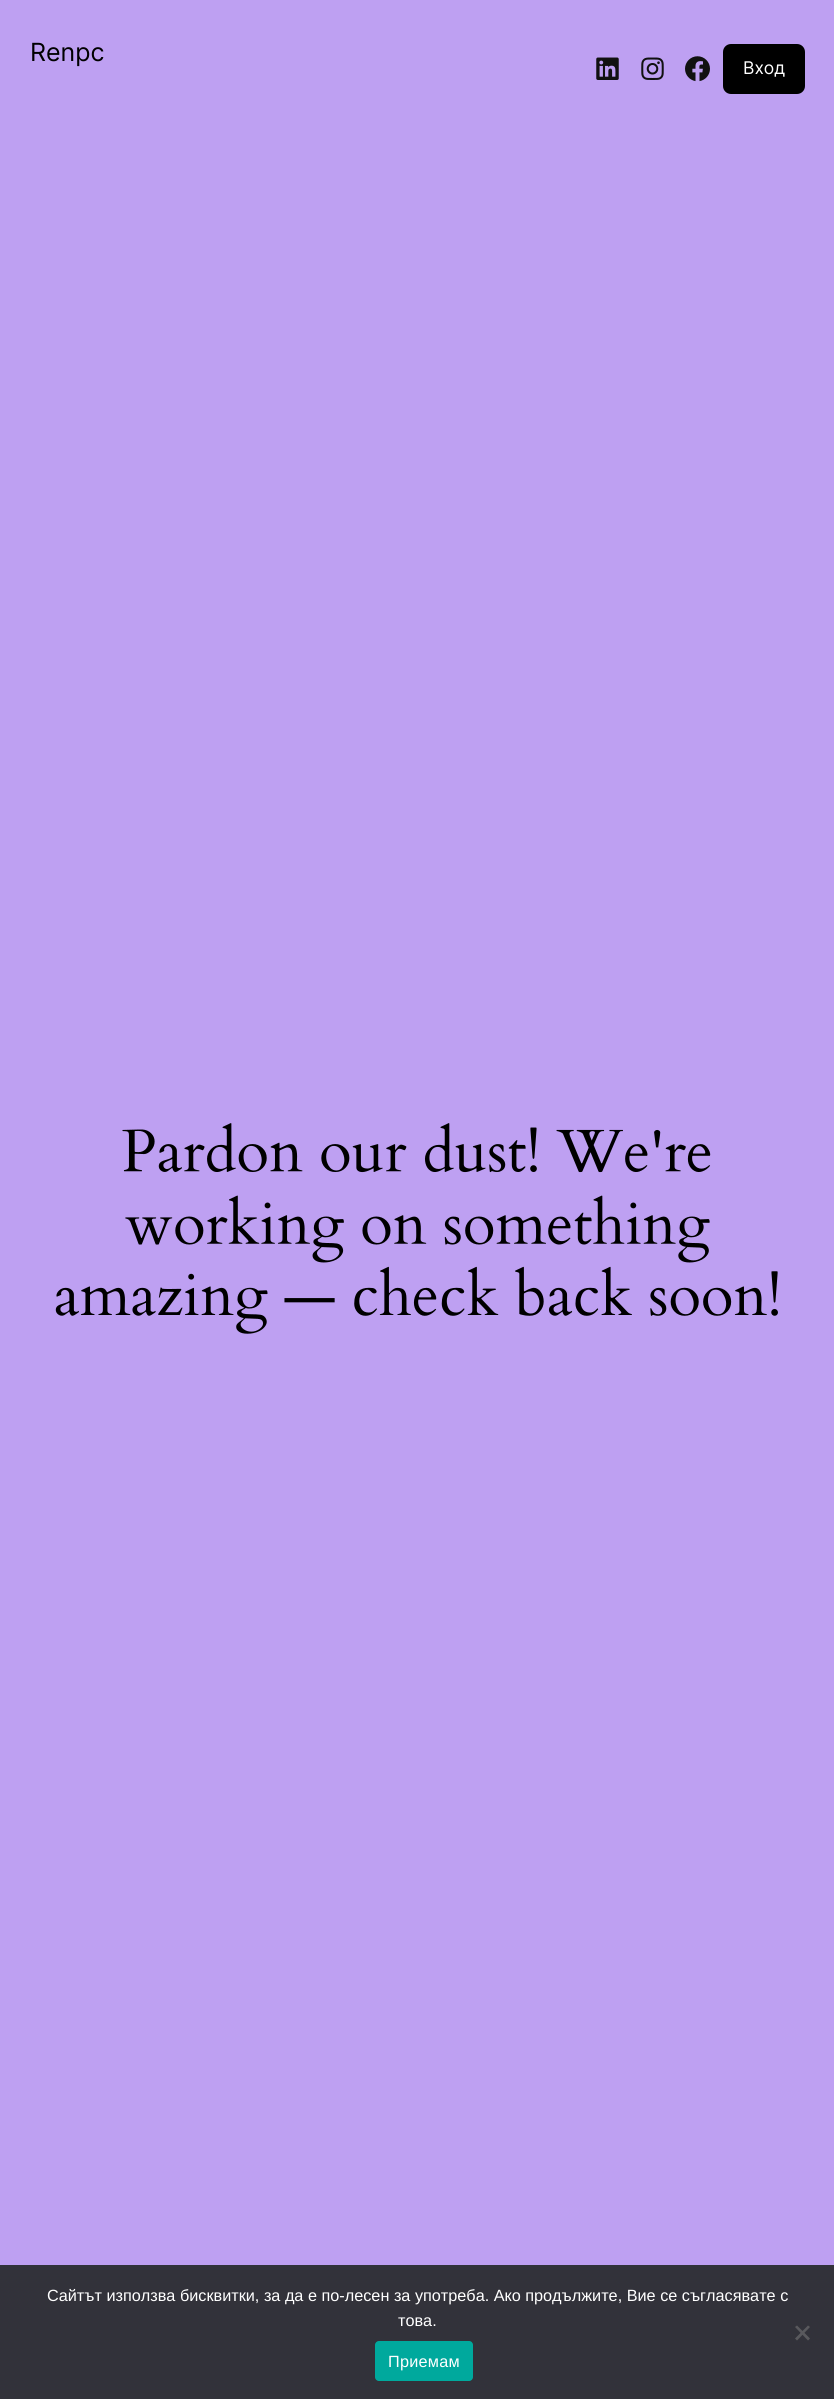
#include <cairo.h>
#include <math.h>
#include <stddef.h>


static void set_color(cairo_t *cr, unsigned color) {
    cairo_set_source_rgb(cr, (color >> 16) / 255.0, (color >> 8 & 255) / 255.0, (color & 255) / 255.0);
}

static void draw_text(cairo_t *cr, double x, double y, const char *s, const char *family, double size, int italic, int bold, unsigned color) {
    cairo_select_font_face(cr, family, italic ? CAIRO_FONT_SLANT_ITALIC : CAIRO_FONT_SLANT_NORMAL,
        bold ? CAIRO_FONT_WEIGHT_BOLD : CAIRO_FONT_WEIGHT_NORMAL);
    cairo_set_font_size(cr, size);
    set_color(cr, color);
    cairo_move_to(cr, x, y);
    cairo_show_text(cr, s);
}

static void draw_spaced(cairo_t *cr, double x, double y, const char *s, double letter, double word) {
    cairo_move_to(cr, x, y);
    while (*s) {
        char ch[5] = {0};
        int n = 0;
        do ch[n++] = *s++; while ((*s & 0xC0) == 0x80);
        cairo_show_text(cr, ch);
        cairo_rel_move_to(cr, letter + word * (*ch == ' '), 0);
    }
}

static void fill_rect(cairo_t *cr, double x, double y, double w, double h, unsigned color) {
    set_color(cr, color);
    cairo_rectangle(cr, x, y, w, h);
    cairo_fill(cr);
}

static void rounded_rect(cairo_t *cr, double x, double y, double w, double h, double r) {
    cairo_new_sub_path(cr);
    cairo_arc(cr, x + w - r, y + h - r, r, 0, M_PI / 2);
    cairo_arc(cr, x + r, y + h - r, r, M_PI / 2, M_PI);
    cairo_arc(cr, x + r, y + r, r, M_PI, 1.5 * M_PI);
    cairo_arc(cr, x + w - r, y + r, r, 1.5 * M_PI, 2 * M_PI);
    cairo_close_path(cr);
}

static void draw_image(cairo_t *cr, const char *path, double x, double y, double w, double h) {
    cairo_surface_t *image = cairo_image_surface_create_from_png(path);
    cairo_save(cr);
    cairo_set_source_surface(cr, image, x, y);
    cairo_rectangle(cr, x, y, w, h);
    cairo_fill(cr);
    cairo_restore(cr);
    cairo_surface_destroy(image);
}

int main(void) {
    cairo_surface_t *surface = cairo_image_surface_create(CAIRO_FORMAT_RGB24, 834, 2399);
    cairo_t *cr = cairo_create(surface);
    cairo_font_options_t *options = cairo_font_options_create();
    cairo_font_options_set_hint_metrics(options, CAIRO_HINT_METRICS_OFF);
    cairo_font_options_set_hint_style(options, CAIRO_HINT_STYLE_NONE);
    cairo_set_font_options(cr, options);
    cairo_set_miter_limit(cr, 4);
    set_color(cr, 0xBEA0F2);
    cairo_paint(cr);
    draw_text(cr, 30, 61, "Renpc", "Inter", 25, 0, 0, 0x000000);
    draw_image(cr, "assets/img1.png", 596, 57, 23, 23);
    draw_image(cr, "assets/img2.png", 641, 57, 23, 23);
    draw_image(cr, "assets/img3.png", 685, 56, 25, 26);
    rounded_rect(cr, 723, 44, 82, 50, 8);
    cairo_fill(cr);
    draw_text(cr, 743, 74, "Вход", "Inter", 17.5, 0, 0, 0xFFFFFF);
    draw_image(cr, "assets/img4.png", 122, 1123, 589, 50);
    draw_image(cr, "assets/img5.png", 125, 1195, 585, 68);
    draw_image(cr, "assets/img6.png", 55, 1266, 723, 68);
    fill_rect(cr, 0, 2265, 834, 134, 0x32323A);
    draw_text(cr, 47, 2301, "Сайтът използва бисквитки, за да е по-лесен за употреба. Ако продължите, Вие се съгласявате с", "Liberation Sans", 16.25, 0, 0, 0xFFFFFF);
    draw_text(cr, 398, 2326, "това.", "Liberation Sans", 16.25, 0, 0, 0xFFFFFF);
    set_color(cr, 0x59595D);
    cairo_new_path(cr);
    cairo_move_to(cr, 808, 2325.5);
    cairo_line_to(cr, 810, 2327);
    cairo_line_to(cr, 797, 2340.5);
    cairo_line_to(cr, 795, 2338.5);
    cairo_close_path(cr);
    cairo_fill(cr);
    cairo_new_path(cr);
    cairo_move_to(cr, 795, 2327);
    cairo_line_to(cr, 797, 2325.5);
    cairo_line_to(cr, 810, 2338.5);
    cairo_line_to(cr, 808, 2340.5);
    cairo_close_path(cr);
    cairo_fill(cr);
    set_color(cr, 0x00A99D);
    rounded_rect(cr, 375, 2341, 98, 40, 4);
    cairo_fill(cr);
    set_color(cr, 0xFFFFFF);
    draw_spaced(cr, 388, 2367, "Приемам", 0.25, 0);
    cairo_surface_write_to_png(surface, "output.png");
    cairo_font_options_destroy(options);
    cairo_destroy(cr);
    cairo_surface_destroy(surface);
    return 0;
}
